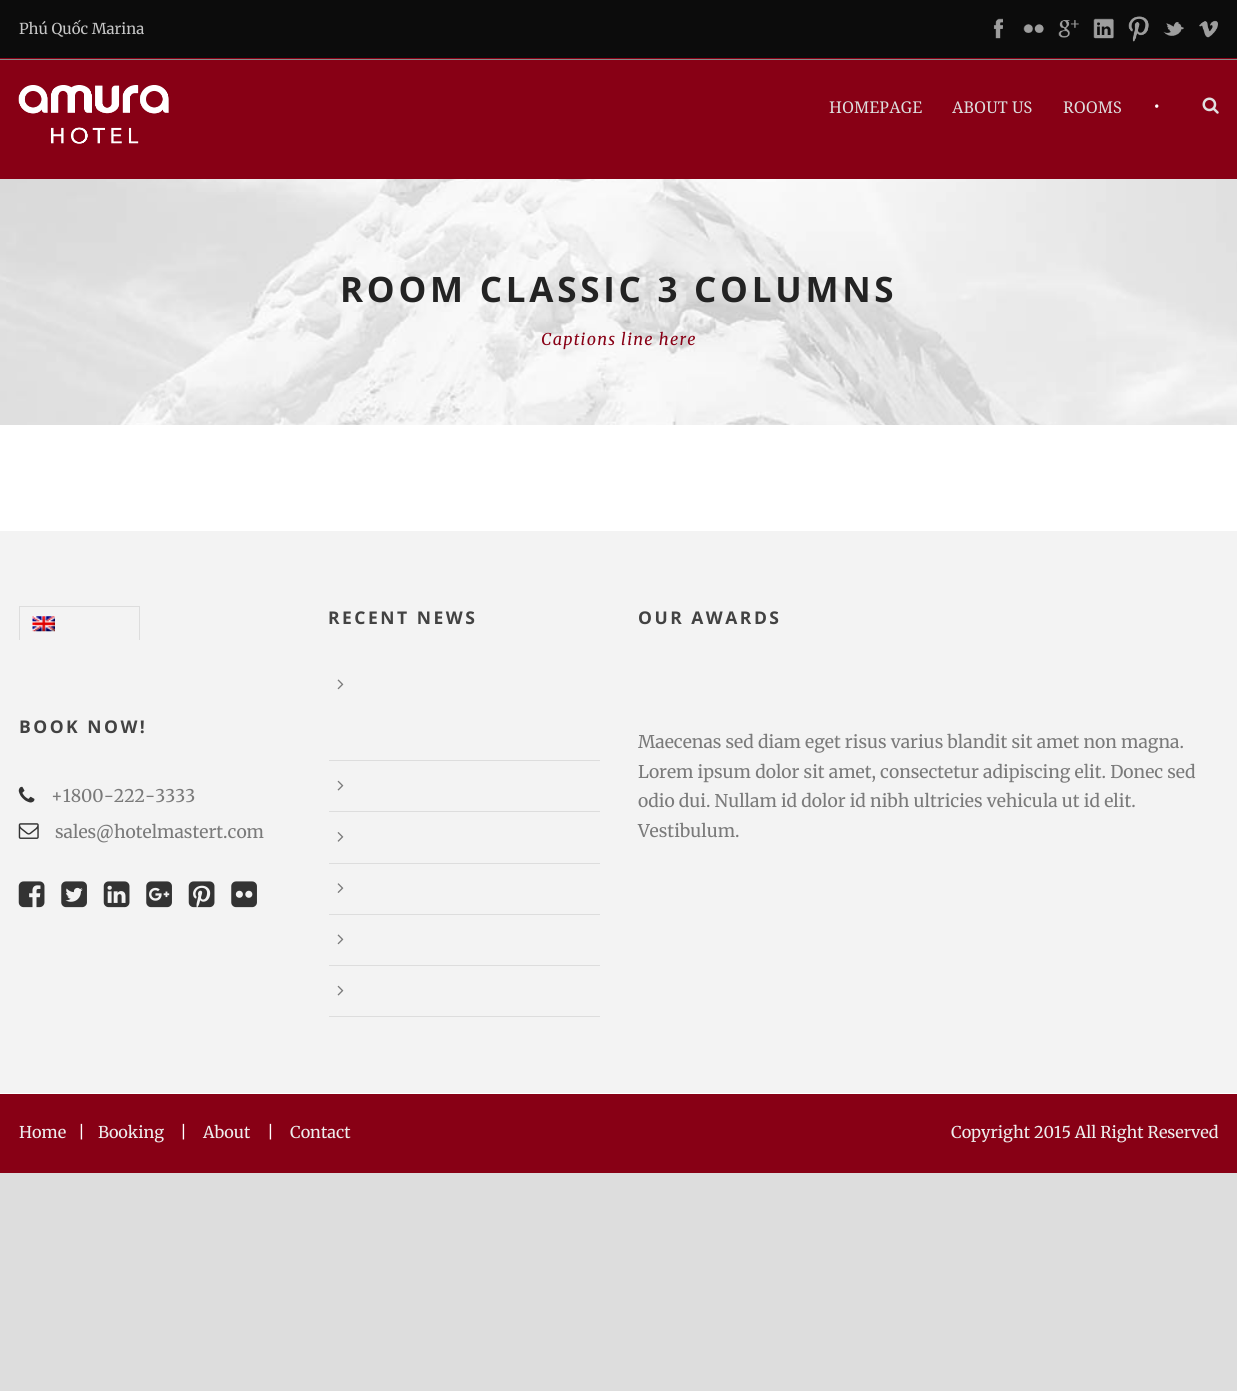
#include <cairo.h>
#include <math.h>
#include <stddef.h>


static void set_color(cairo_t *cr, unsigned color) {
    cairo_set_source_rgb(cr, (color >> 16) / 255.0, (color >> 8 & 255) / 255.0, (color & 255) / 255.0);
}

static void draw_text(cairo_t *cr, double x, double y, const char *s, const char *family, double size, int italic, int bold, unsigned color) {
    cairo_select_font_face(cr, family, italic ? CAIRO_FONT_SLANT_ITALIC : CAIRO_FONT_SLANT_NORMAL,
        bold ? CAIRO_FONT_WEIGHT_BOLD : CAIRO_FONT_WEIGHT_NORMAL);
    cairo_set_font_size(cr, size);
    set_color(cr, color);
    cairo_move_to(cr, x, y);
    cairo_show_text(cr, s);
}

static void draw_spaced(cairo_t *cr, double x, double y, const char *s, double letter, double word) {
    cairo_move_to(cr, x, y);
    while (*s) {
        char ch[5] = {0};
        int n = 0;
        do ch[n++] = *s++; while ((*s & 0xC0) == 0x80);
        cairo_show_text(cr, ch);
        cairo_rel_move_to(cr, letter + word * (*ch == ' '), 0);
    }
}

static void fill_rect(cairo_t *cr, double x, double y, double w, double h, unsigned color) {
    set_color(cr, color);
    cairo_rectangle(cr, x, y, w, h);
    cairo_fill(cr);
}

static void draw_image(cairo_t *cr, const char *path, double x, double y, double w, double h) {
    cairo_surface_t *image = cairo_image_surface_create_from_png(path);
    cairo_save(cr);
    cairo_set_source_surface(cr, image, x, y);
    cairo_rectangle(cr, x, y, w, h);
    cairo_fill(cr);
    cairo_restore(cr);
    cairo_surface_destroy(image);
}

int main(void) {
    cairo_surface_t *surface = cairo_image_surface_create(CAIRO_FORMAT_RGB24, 1237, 1391);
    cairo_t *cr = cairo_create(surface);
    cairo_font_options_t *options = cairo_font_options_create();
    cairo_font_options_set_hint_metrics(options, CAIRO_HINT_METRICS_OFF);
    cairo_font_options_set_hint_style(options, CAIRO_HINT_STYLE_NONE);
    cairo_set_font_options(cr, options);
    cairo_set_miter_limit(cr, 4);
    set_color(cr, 0xDDDDDD);
    cairo_paint(cr);
    fill_rect(cr, 0, 425, 1237, 106, 0xFFFFFF);
    fill_rect(cr, 0, 58, 1237, 121, 0x880015);
    fill_rect(cr, 0, 0, 1237, 58, 0x0C0C0C);
    draw_text(cr, 19, 34, "Phú Quốc Marina", "Merriweather", 15, 0, 0, 0xC6C6C6);
    draw_image(cr, "assets/img1.png", 993, 18, 10, 21);
    draw_image(cr, "assets/img2.png", 1023, 24, 21, 9);
    draw_image(cr, "assets/img3.png", 1058, 20, 21, 18);
    draw_image(cr, "assets/img4.png", 1093, 18, 21, 21);
    draw_image(cr, "assets/img5.png", 1128, 16, 21, 26);
    draw_image(cr, "assets/img6.png", 1163, 22, 21, 14);
    draw_image(cr, "assets/img7.png", 1199, 20, 19, 18);
    fill_rect(cr, 0, 59, 1237, 1, 0x898989);
    draw_image(cr, "assets/img8.png", 18, 85, 151, 59);
    draw_text(cr, 829, 113, "HOMEPAGE", "Droid Serif", 16.25, 0, 0, 0xDDDDDD);
    draw_text(cr, 952, 113, "ABOUT US", "Droid Serif", 16.25, 0, 0, 0xDDDDDD);
    draw_text(cr, 1063, 113, "ROOMS", "Droid Serif", 16.25, 0, 0, 0xDDDDDD);
    draw_text(cr, 1153, 112, "•", "Merriweather", 17.5, 0, 0, 0xFFFFFF);
    draw_image(cr, "assets/img9.png", 1202, 97, 17, 17);
    draw_image(cr, "assets/img10.png", 0, 179, 1237, 246);
    cairo_select_font_face(cr, "Open Sans", CAIRO_FONT_SLANT_NORMAL, CAIRO_FONT_WEIGHT_BOLD);
    cairo_set_font_size(cr, 35);
    set_color(cr, 0x232323);
    draw_spaced(cr, 340, 302, "ROOM CLASSIC 3 COLUMNS", 3.75, 0);
    cairo_select_font_face(cr, "Merriweather", CAIRO_FONT_SLANT_ITALIC, CAIRO_FONT_WEIGHT_NORMAL);
    cairo_set_font_size(cr, 16.25);
    set_color(cr, 0x880015);
    draw_spaced(cr, 541, 345, "Captions line here", 1.25, 0);
    fill_rect(cr, 0, 531, 1237, 562, 0xF3F3F3);
    fill_rect(cr, 19, 606, 121, 1, 0xDDDDDD);
    fill_rect(cr, 139, 606, 1, 34, 0xDDDDDD);
    fill_rect(cr, 19, 606, 1, 34, 0xDDDDDD);
    draw_image(cr, "assets/img11.png", 32, 616, 23, 16);
    cairo_select_font_face(cr, "Open Sans", CAIRO_FONT_SLANT_NORMAL, CAIRO_FONT_WEIGHT_BOLD);
    cairo_set_font_size(cr, 17.5);
    set_color(cr, 0x424242);
    draw_spaced(cr, 19, 733, "BOOK NOW!", 2.5, 0);
    draw_image(cr, "assets/img12.png", 18, 786, 17, 17);
    draw_text(cr, 51, 802, "+1800-222-3333", "Merriweather", 17.5, 0, 0, 0x7A7A7A);
    draw_image(cr, "assets/img13.png", 18, 823, 21, 16);
    draw_text(cr, 55, 838, "sales@hotelmastert.com", "Merriweather", 17.5, 0, 0, 0x7A7A7A);
    draw_image(cr, "assets/img14.png", 18, 881, 27, 27);
    draw_image(cr, "assets/img15.png", 61, 881, 26, 27);
    draw_image(cr, "assets/img16.png", 103, 881, 27, 27);
    draw_image(cr, "assets/img17.png", 146, 881, 26, 27);
    draw_image(cr, "assets/img18.png", 188, 881, 27, 27);
    draw_image(cr, "assets/img19.png", 231, 881, 26, 27);
    cairo_select_font_face(cr, "Open Sans", CAIRO_FONT_SLANT_NORMAL, CAIRO_FONT_WEIGHT_BOLD);
    set_color(cr, 0x424242);
    draw_spaced(cr, 328, 624, "RECENT NEWS", 2.5, 0);
    fill_rect(cr, 329, 760, 271, 1, 0xDDDDDD);
    draw_image(cr, "assets/img20.png", 337, 679, 7, 11);
    fill_rect(cr, 329, 811, 271, 1, 0xDDDDDD);
    draw_image(cr, "assets/img21.png", 337, 780, 7, 11);
    fill_rect(cr, 329, 863, 271, 1, 0xDDDDDD);
    draw_image(cr, "assets/img22.png", 337, 832, 7, 10);
    fill_rect(cr, 329, 914, 271, 1, 0xDDDDDD);
    draw_image(cr, "assets/img23.png", 337, 883, 7, 10);
    fill_rect(cr, 329, 965, 271, 1, 0xDDDDDD);
    draw_image(cr, "assets/img20.png", 337, 934, 7, 11);
    fill_rect(cr, 329, 1016, 271, 1, 0xDDDDDD);
    draw_image(cr, "assets/img21.png", 337, 985, 7, 11);
    set_color(cr, 0x424242);
    draw_spaced(cr, 638, 624, "OUR AWARDS", 2.5, 0);
    draw_text(cr, 638, 748, "Maecenas sed diam eget risus varius blandit sit amet non magna.", "Merriweather", 17.5, 0, 0, 0x7A7A7A);
    draw_text(cr, 638, 778, "Lorem ipsum dolor sit amet, consectetur adipiscing elit. Donec sed", "Merriweather", 17.5, 0, 0, 0x7A7A7A);
    draw_text(cr, 638, 807, "odio dui. Nullam id dolor id nibh ultricies vehicula ut id elit.", "Merriweather", 17.5, 0, 0, 0x7A7A7A);
    draw_text(cr, 638, 837, "Vestibulum.", "Merriweather", 17.5, 0, 0, 0x7A7A7A);
    fill_rect(cr, 0, 1094, 1237, 79, 0x880015);
    fill_rect(cr, 0, 1093, 1237, 1, 0xFFFFFF);
    draw_text(cr, 19, 1138, "Home", "Merriweather", 16.25, 0, 0, 0xEDEDED);
    draw_text(cr, 78, 1138, "|", "Merriweather", 16.25, 0, 0, 0xFFFFFF);
    draw_text(cr, 98, 1138, "Booking", "Merriweather", 16.25, 0, 0, 0xEDEDED);
    draw_text(cr, 180, 1138, "|", "Merriweather", 16.25, 0, 0, 0xFFFFFF);
    draw_text(cr, 203, 1138, "About", "Merriweather", 16.25, 0, 0, 0xEDEDED);
    draw_text(cr, 267, 1138, "|", "Merriweather", 16.25, 0, 0, 0xFFFFFF);
    draw_text(cr, 290, 1138, "Contact", "Merriweather", 16.25, 0, 0, 0xEDEDED);
    draw_text(cr, 951, 1138, "Copyright 2015 All Right Reserved", "Merriweather", 16.25, 0, 0, 0xEDEDED);
    cairo_surface_write_to_png(surface, "output.png");
    cairo_font_options_destroy(options);
    cairo_destroy(cr);
    cairo_surface_destroy(surface);
    return 0;
}
